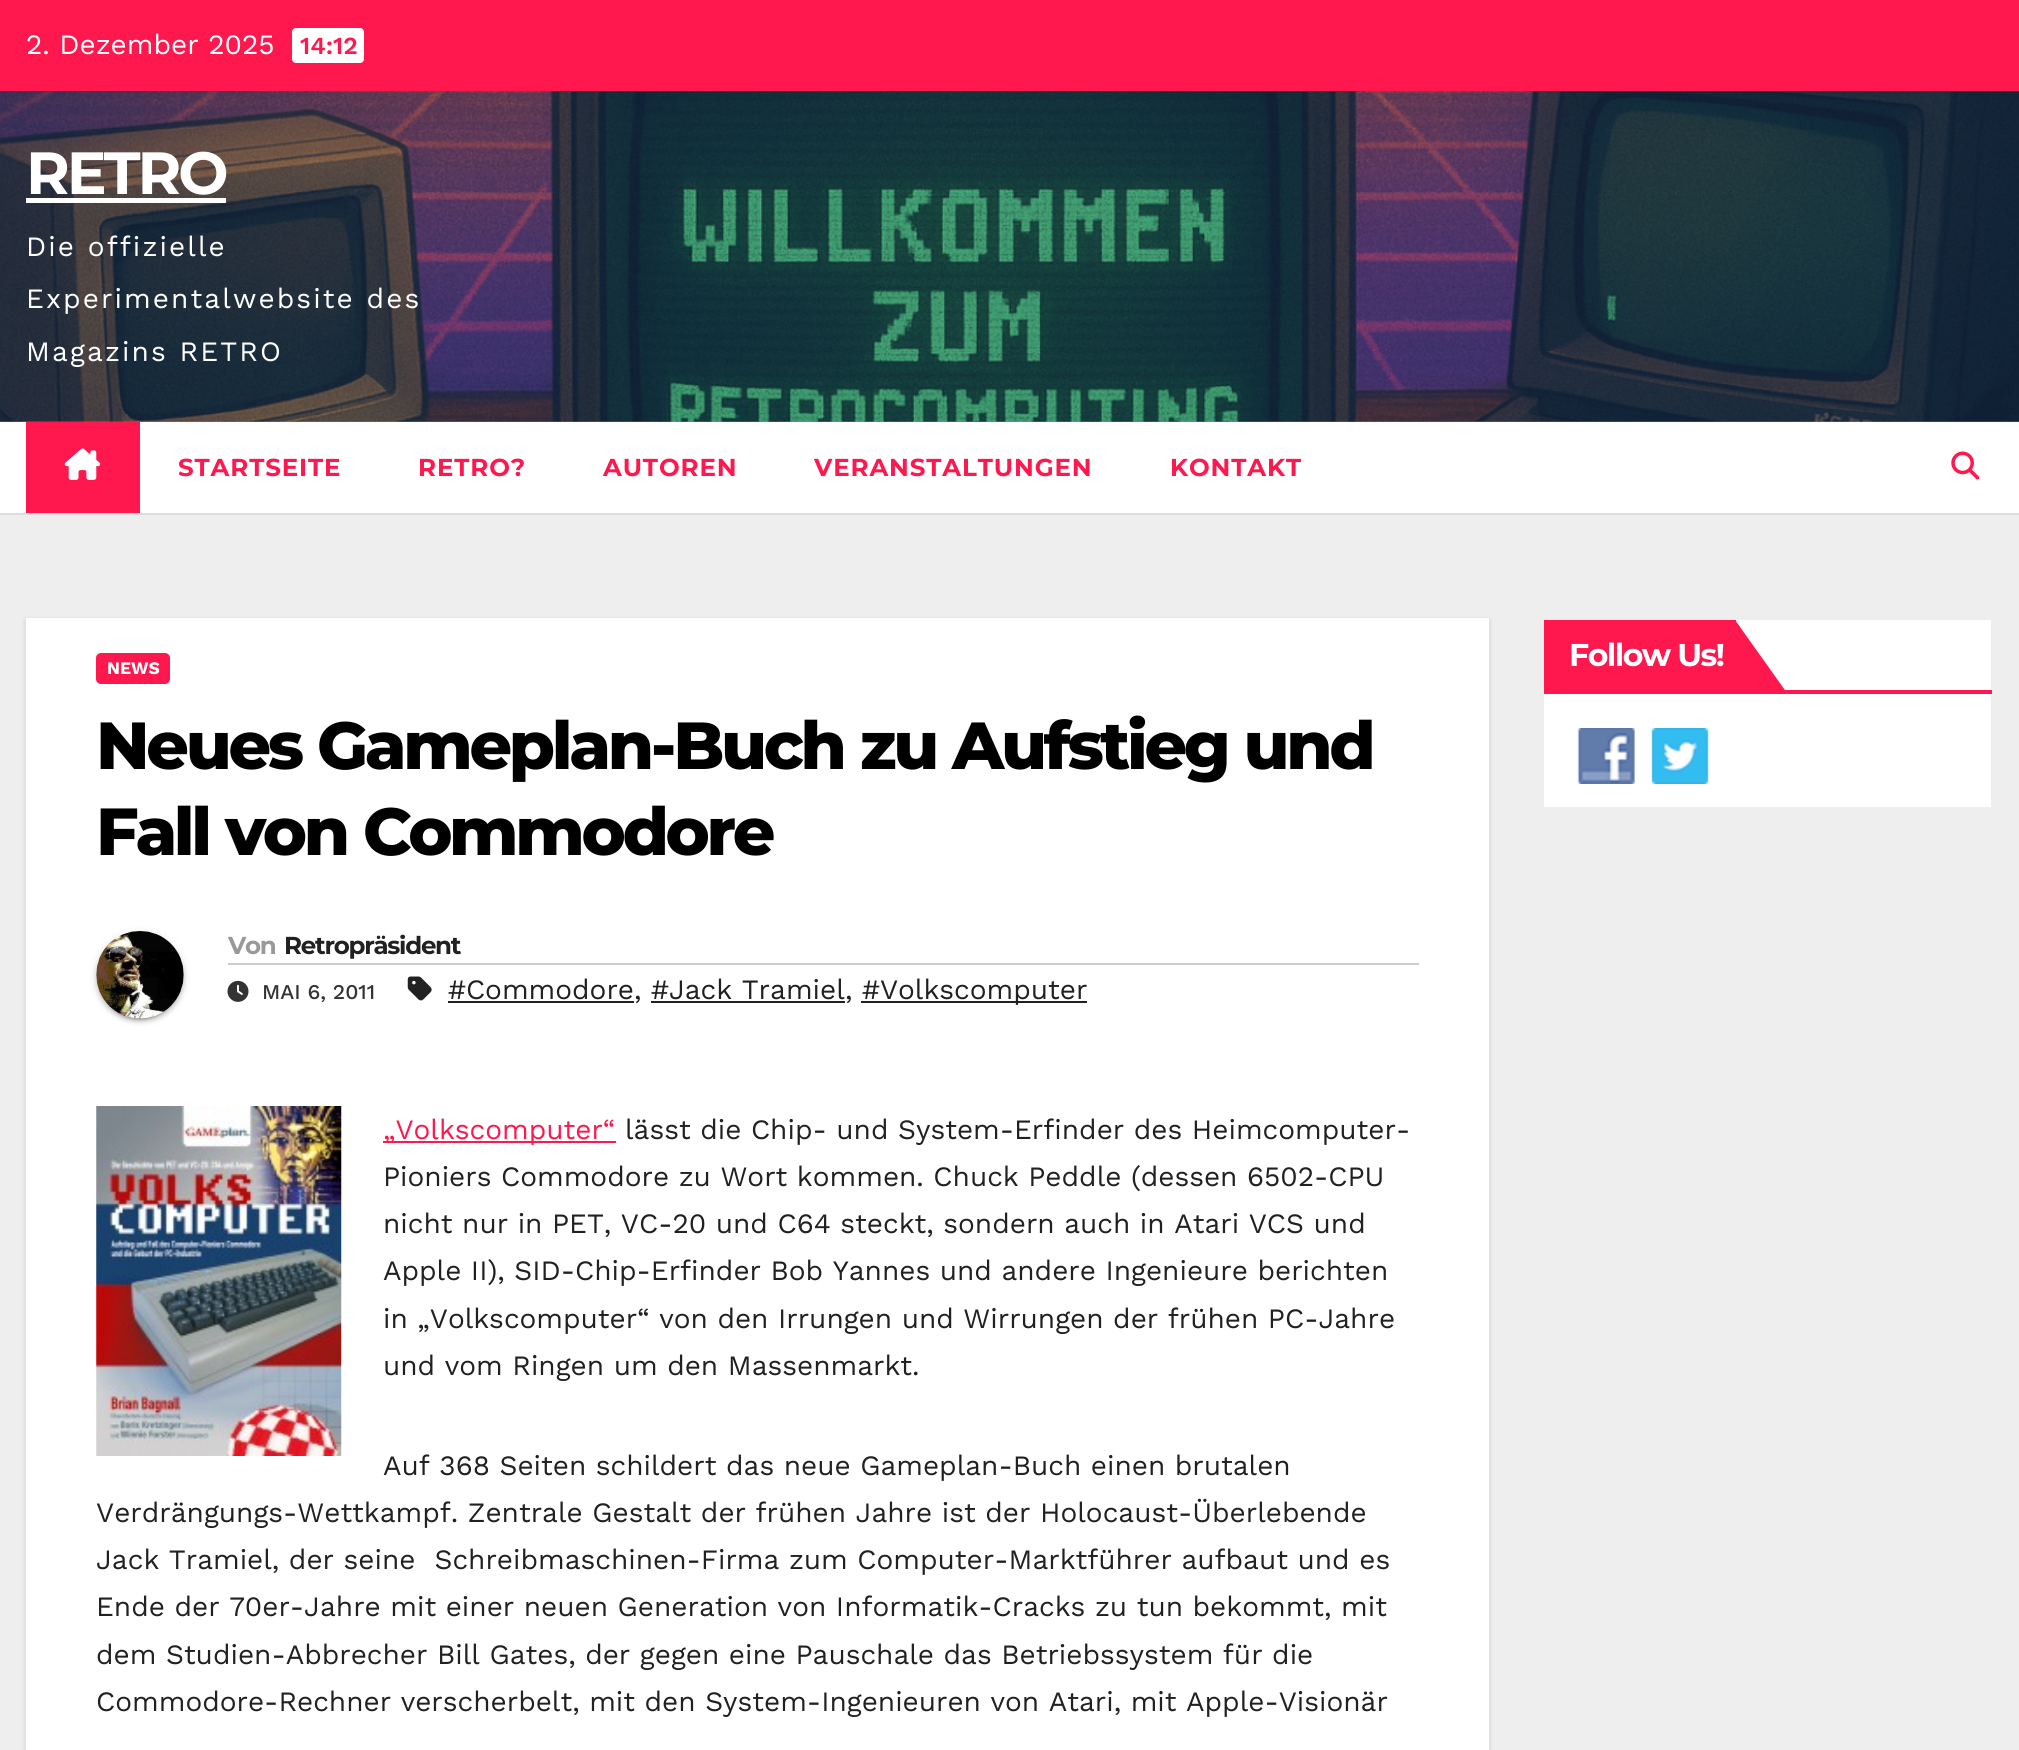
#include <cairo.h>
#include <math.h>
#include <stddef.h>


static void set_color(cairo_t *cr, unsigned color) {
    cairo_set_source_rgb(cr, (color >> 16) / 255.0, (color >> 8 & 255) / 255.0, (color & 255) / 255.0);
}

static void draw_text(cairo_t *cr, double x, double y, const char *s, const char *family, double size, int italic, int bold, unsigned color) {
    cairo_select_font_face(cr, family, italic ? CAIRO_FONT_SLANT_ITALIC : CAIRO_FONT_SLANT_NORMAL,
        bold ? CAIRO_FONT_WEIGHT_BOLD : CAIRO_FONT_WEIGHT_NORMAL);
    cairo_set_font_size(cr, size);
    set_color(cr, color);
    cairo_move_to(cr, x, y);
    cairo_show_text(cr, s);
}

static void draw_spaced(cairo_t *cr, double x, double y, const char *s, double letter, double word) {
    cairo_move_to(cr, x, y);
    while (*s) {
        char ch[5] = {0};
        int n = 0;
        do ch[n++] = *s++; while ((*s & 0xC0) == 0x80);
        cairo_show_text(cr, ch);
        cairo_rel_move_to(cr, letter + word * (*ch == ' '), 0);
    }
}

static void fill_rect(cairo_t *cr, double x, double y, double w, double h, unsigned color) {
    set_color(cr, color);
    cairo_rectangle(cr, x, y, w, h);
    cairo_fill(cr);
}

static void rounded_rect(cairo_t *cr, double x, double y, double w, double h, double r) {
    cairo_new_sub_path(cr);
    cairo_arc(cr, x + w - r, y + h - r, r, 0, M_PI / 2);
    cairo_arc(cr, x + r, y + h - r, r, M_PI / 2, M_PI);
    cairo_arc(cr, x + r, y + r, r, M_PI, 1.5 * M_PI);
    cairo_arc(cr, x + w - r, y + r, r, 1.5 * M_PI, 2 * M_PI);
    cairo_close_path(cr);
}

static void draw_shadow(cairo_t *cr, double x, double y, double w, double h, double r, double blur, double alpha) {
    cairo_push_group_with_content(cr, CAIRO_CONTENT_ALPHA);
    cairo_set_operator(cr, CAIRO_OPERATOR_SOURCE);
    for (int i = 15; i >= -15 && fmin(w, h) + blur * i / 3 > 0; i -= 2) {
        double e = blur * i / 6;
        cairo_set_source_rgba(cr, 0, 0, 0, alpha * erfc((i - 1) / 8.5) / 2);
        rounded_rect(cr, x - e, y - e, w + 2 * e, h + 2 * e, fmax(0, fmin(r + e + blur * .6, fmin(w, h) / 2 + e)));
        cairo_fill(cr);
    }
    cairo_pattern_t *soft = cairo_pop_group(cr);
    cairo_mask(cr, soft);
    cairo_pattern_destroy(soft);
}

static void draw_image(cairo_t *cr, const char *path, double x, double y, double w, double h) {
    cairo_surface_t *image = cairo_image_surface_create_from_png(path);
    cairo_save(cr);
    cairo_set_source_surface(cr, image, x, y);
    cairo_rectangle(cr, x, y, w, h);
    cairo_fill(cr);
    cairo_restore(cr);
    cairo_surface_destroy(image);
}

int main(void) {
    cairo_surface_t *surface = cairo_image_surface_create(CAIRO_FORMAT_RGB24, 2019, 1750);
    cairo_t *cr = cairo_create(surface);
    cairo_font_options_t *options = cairo_font_options_create();
    cairo_font_options_set_hint_metrics(options, CAIRO_HINT_METRICS_OFF);
    cairo_font_options_set_hint_style(options, CAIRO_HINT_STYLE_NONE);
    cairo_set_font_options(cr, options);
    cairo_set_miter_limit(cr, 4);
    set_color(cr, 0xEEEEEE);
    cairo_paint(cr);
    fill_rect(cr, 0, 0, 2019, 91, 0xFF184E);
    draw_text(cr, 26, 54, "2. Dezember 2025", "Work Sans", 28, 0, 0, 0xFFFFFF);
    rounded_rect(cr, 292, 28, 72, 35, 4);
    cairo_fill(cr);
    draw_text(cr, 300, 54, "14:12", "Work Sans SemiBold", 24.5, 0, 0, 0xFF184E);
    draw_image(cr, "assets/img1.png", 0, 91, 2019, 331);
    cairo_set_source_rgba(cr, 0.125, 0.184, 0.357, 0.4);
    cairo_rectangle(cr, 0, 91, 2019, 331);
    cairo_fill(cr);
    cairo_select_font_face(cr, "Montserrat", CAIRO_FONT_SLANT_NORMAL, CAIRO_FONT_WEIGHT_BOLD);
    cairo_set_font_size(cr, 59.5);
    set_color(cr, 0xFFFFFF);
    draw_spaced(cr, 26, 194, "RETRO", -3, 0);
    fill_rect(cr, 26, 198, 200, 5, 0xFFFFFF);
    cairo_select_font_face(cr, "Work Sans", CAIRO_FONT_SLANT_NORMAL, CAIRO_FONT_WEIGHT_NORMAL);
    cairo_set_font_size(cr, 28);
    draw_spaced(cr, 26, 256, "Die offizielle", 2.1, 0);
    draw_spaced(cr, 26, 308, "Experimentalwebsite des", 2.1, 0);
    draw_spaced(cr, 26, 361, "Magazins RETRO", 2.1, 0);
    set_color(cr, 0xDDDDDD);
    cairo_new_path(cr);
    cairo_move_to(cr, 0, 513);
    cairo_line_to(cr, 0, 515);
    cairo_line_to(cr, 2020, 515);
    cairo_line_to(cr, 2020, 424);
    cairo_line_to(cr, 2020, 513);
    cairo_close_path(cr);
    cairo_fill(cr);
    fill_rect(cr, 0, 422, 2019, 91, 0xFFFFFF);
    fill_rect(cr, 26, 422, 114, 91, 0xFF184E);
    draw_image(cr, "assets/img2.png", 64, 448, 37, 32);
    cairo_select_font_face(cr, "Montserrat", CAIRO_FONT_SLANT_NORMAL, CAIRO_FONT_WEIGHT_BOLD);
    cairo_set_font_size(cr, 24.5);
    draw_spaced(cr, 178, 476, "STARTSEITE", 0.9, 0);
    draw_spaced(cr, 418, 476, "RETRO?", 0.9, 0);
    draw_spaced(cr, 603, 476, "AUTOREN", 0.9, 0);
    draw_spaced(cr, 814, 476, "VERANSTALTUNGEN", 0.9, 0);
    draw_spaced(cr, 1170, 476, "KONTAKT", 0.9, 0);
    draw_image(cr, "assets/img3.png", 1951, 451, 29, 29);
    fill_rect(cr, 1544, 620, 447, 187, 0xFFFFFF);
    fill_rect(cr, 1544, 690, 448, 4, 0xFF184E);
    fill_rect(cr, 1544, 620, 192, 70, 0xFF184E);
    cairo_set_font_size(cr, 31.5);
    set_color(cr, 0xFFFFFF);
    draw_spaced(cr, 1569, 666, "Follow Us!", -1.5, 0);
    set_color(cr, 0xFF184E);
    cairo_new_path(cr);
    cairo_move_to(cr, 1735, 620);
    cairo_line_to(cr, 1787, 693);
    cairo_line_to(cr, 1735, 693);
    cairo_close_path(cr);
    cairo_fill(cr);
    cairo_new_path(cr);
    cairo_move_to(cr, 1740, 627);
    cairo_line_to(cr, 1740, 688);
    cairo_line_to(cr, 1735, 692);
    cairo_line_to(cr, 1735, 621);
    cairo_close_path(cr);
    cairo_fill(cr);
    draw_image(cr, "assets/img4.png", 1577, 728, 58, 56);
    draw_image(cr, "assets/img5.png", 1651, 728, 58, 56);
    set_color(cr, 0x000000);
    draw_shadow(cr, 26, 620, 1463, 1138, 0, 2.5, 0.15);
    fill_rect(cr, 26, 618, 1463, 1132, 0xFFFFFF);
    set_color(cr, 0xFF184E);
    rounded_rect(cr, 96, 653, 74, 31, 5);
    cairo_fill(cr);
    draw_text(cr, 107, 674, "NEWS", "Work Sans", 17.5, 0, 1, 0xFFFFFF);
    cairo_select_font_face(cr, "Montserrat ExtraBold", CAIRO_FONT_SLANT_NORMAL, CAIRO_FONT_WEIGHT_NORMAL);
    cairo_set_font_size(cr, 66.5);
    set_color(cr, 0x000000);
    draw_spaced(cr, 96, 769, "Neues Gameplan-Buch zu Aufstieg und", -3.3, 0);
    draw_spaced(cr, 96, 855, "Fall von Commodore", -3.3, 0);
    set_color(cr, 0x000000);
    draw_shadow(cr, 96, 933, 88, 87, 43.5, 4.5, 0.12);
    draw_shadow(cr, 100, 940, 80, 80, 40, 1, 0.2);
    draw_shadow(cr, 96, 935, 88, 87, 43.5, 2, 0.14);
    draw_image(cr, "assets/img6.png", 96, 931, 88, 88);
    fill_rect(cr, 228, 963, 1191, 2, 0xCCCCCC);
    cairo_select_font_face(cr, "Montserrat", CAIRO_FONT_SLANT_NORMAL, CAIRO_FONT_WEIGHT_BOLD);
    cairo_set_font_size(cr, 24.5);
    set_color(cr, 0x999999);
    draw_spaced(cr, 228, 954, "Von", -1.25, 0);
    set_color(cr, 0x212121);
    draw_spaced(cr, 284, 954, "Retropräsident", -1.25, 0);
    draw_image(cr, "assets/img7.png", 227, 980, 22, 22);
    draw_text(cr, 262, 999, "MAI 6, 2011", "Work Sans Medium", 21, 0, 0, 0x333333);
    draw_image(cr, "assets/img8.png", 407, 976, 25, 25);
    draw_text(cr, 448, 999, "#Commodore", "Work Sans", 28, 0, 0, 0x212121);
    fill_rect(cr, 448, 1001, 186, 2, 0x212121);
    draw_text(cr, 634, 999, ",", "Work Sans", 28, 0, 0, 0x212121);
    draw_text(cr, 651, 999, "#Jack Tramiel", "Work Sans", 28, 0, 0, 0x212121);
    fill_rect(cr, 651, 1001, 194, 2, 0x212121);
    draw_text(cr, 845, 999, ",", "Work Sans", 28, 0, 0, 0x212121);
    fill_rect(cr, 861, 1001, 226, 2, 0x212121);
    draw_text(cr, 862, 999, "#Volkscomputer", "Work Sans", 28, 0, 0, 0x212121);
    draw_image(cr, "assets/img9.png", 96, 1106, 246, 350);
    fill_rect(cr, 383, 1141, 233, 2, 0xFF184E);
    draw_text(cr, 383, 1139, "„Volkscomputer“", "Work Sans", 28, 0, 0, 0xFF184E);
    draw_text(cr, 625, 1139, "lässt die Chip- und System-Erfinder des Heimcomputer-", "Work Sans", 28, 0, 0, 0x212121);
    draw_text(cr, 383, 1186, "Pioniers Commodore zu Wort kommen. Chuck Peddle (dessen 6502-CPU", "Work Sans", 28, 0, 0, 0x212121);
    draw_text(cr, 383, 1233, "nicht nur in PET, VC-20 und C64 steckt, sondern auch in Atari VCS und", "Work Sans", 28, 0, 0, 0x212121);
    draw_text(cr, 383, 1280, "Apple II), SID-Chip-Erfinder Bob Yannes und andere Ingenieure berichten", "Work Sans", 28, 0, 0, 0x212121);
    draw_text(cr, 383, 1328, "in „Volkscomputer“ von den Irrungen und Wirrungen der frühen PC-Jahre", "Work Sans", 28, 0, 0, 0x212121);
    draw_text(cr, 383, 1375, "und vom Ringen um den Massenmarkt.", "Work Sans", 28, 0, 0, 0x212121);
    draw_text(cr, 383, 1475, "Auf 368 Seiten schildert das neue Gameplan-Buch einen brutalen", "Work Sans", 28, 0, 0, 0x212121);
    draw_text(cr, 96, 1522, "Verdrängungs-Wettkampf. Zentrale Gestalt der frühen Jahre ist der Holocaust-Überlebende", "Work Sans", 28, 0, 0, 0x212121);
    draw_text(cr, 96, 1569, "Jack Tramiel, der seine  Schreibmaschinen-Firma zum Computer-Marktführer aufbaut und es", "Work Sans", 28, 0, 0, 0x212121);
    draw_text(cr, 96, 1616, "Ende der 70er-Jahre mit einer neuen Generation von Informatik-Cracks zu tun bekommt, mit", "Work Sans", 28, 0, 0, 0x212121);
    draw_text(cr, 96, 1664, "dem Studien-Abbrecher Bill Gates, der gegen eine Pauschale das Betriebssystem für die", "Work Sans", 28, 0, 0, 0x212121);
    draw_text(cr, 96, 1711, "Commodore-Rechner verscherbelt, mit den System-Ingenieuren von Atari, mit Apple-Visionär", "Work Sans", 28, 0, 0, 0x212121);
    cairo_surface_write_to_png(surface, "output.png");
    cairo_font_options_destroy(options);
    cairo_destroy(cr);
    cairo_surface_destroy(surface);
    return 0;
}
